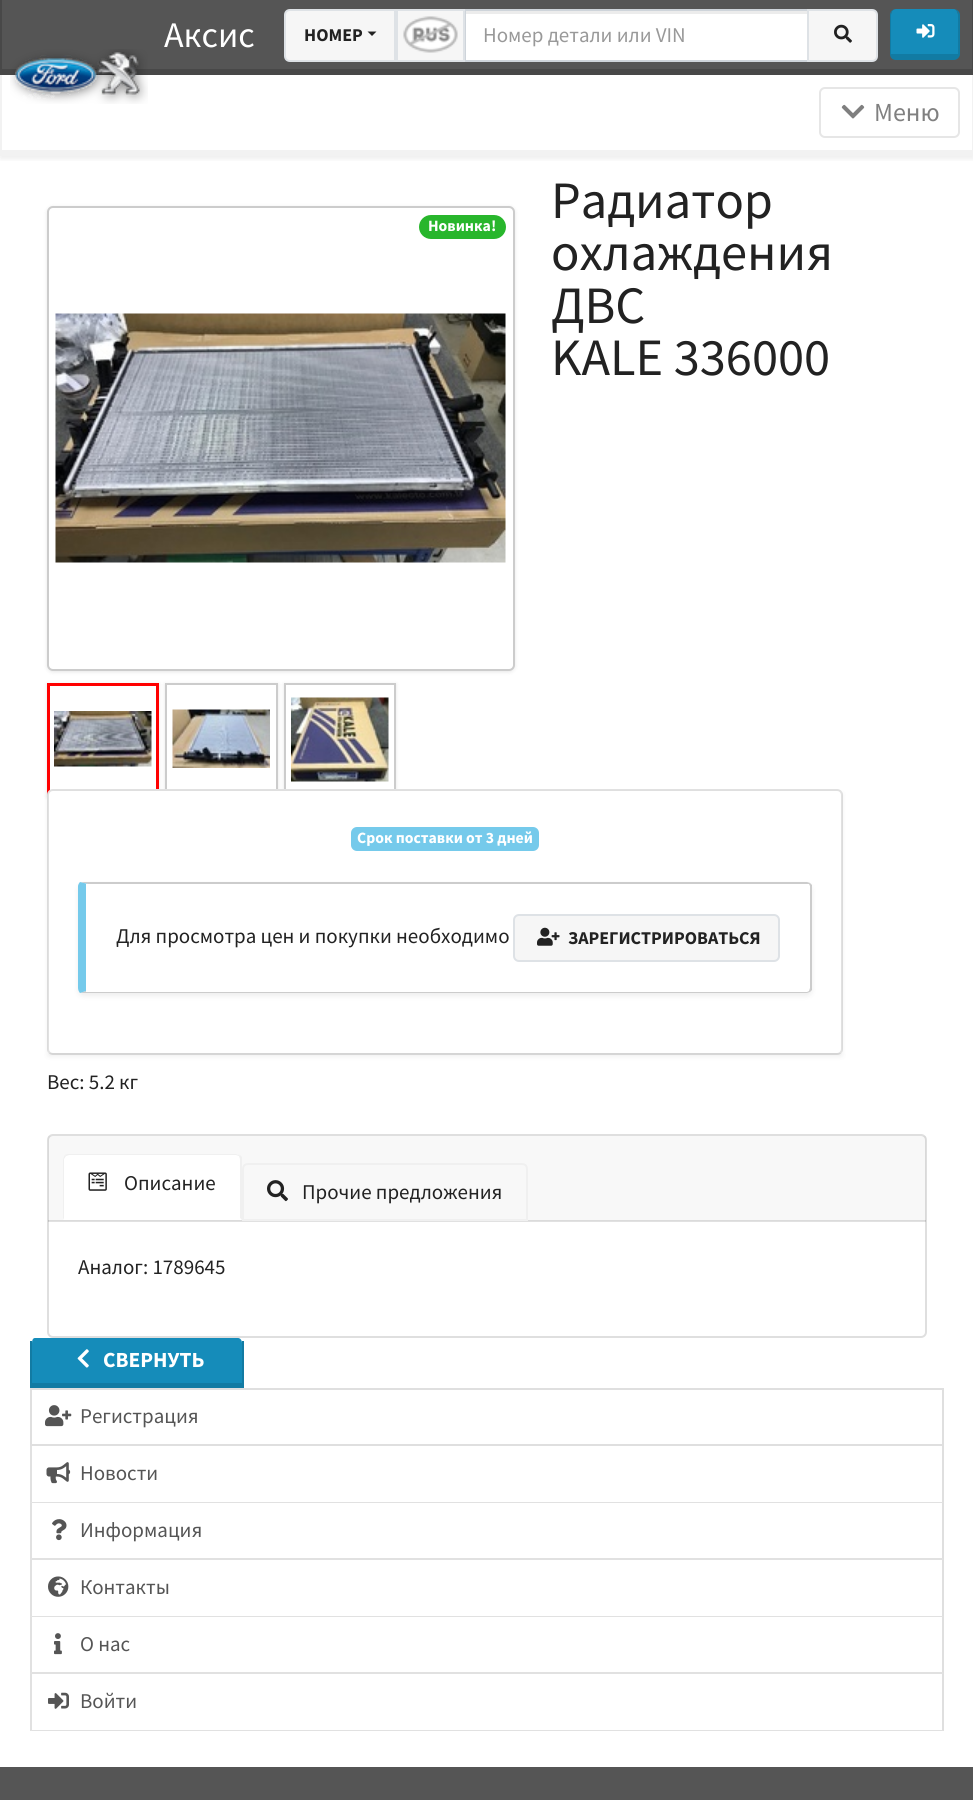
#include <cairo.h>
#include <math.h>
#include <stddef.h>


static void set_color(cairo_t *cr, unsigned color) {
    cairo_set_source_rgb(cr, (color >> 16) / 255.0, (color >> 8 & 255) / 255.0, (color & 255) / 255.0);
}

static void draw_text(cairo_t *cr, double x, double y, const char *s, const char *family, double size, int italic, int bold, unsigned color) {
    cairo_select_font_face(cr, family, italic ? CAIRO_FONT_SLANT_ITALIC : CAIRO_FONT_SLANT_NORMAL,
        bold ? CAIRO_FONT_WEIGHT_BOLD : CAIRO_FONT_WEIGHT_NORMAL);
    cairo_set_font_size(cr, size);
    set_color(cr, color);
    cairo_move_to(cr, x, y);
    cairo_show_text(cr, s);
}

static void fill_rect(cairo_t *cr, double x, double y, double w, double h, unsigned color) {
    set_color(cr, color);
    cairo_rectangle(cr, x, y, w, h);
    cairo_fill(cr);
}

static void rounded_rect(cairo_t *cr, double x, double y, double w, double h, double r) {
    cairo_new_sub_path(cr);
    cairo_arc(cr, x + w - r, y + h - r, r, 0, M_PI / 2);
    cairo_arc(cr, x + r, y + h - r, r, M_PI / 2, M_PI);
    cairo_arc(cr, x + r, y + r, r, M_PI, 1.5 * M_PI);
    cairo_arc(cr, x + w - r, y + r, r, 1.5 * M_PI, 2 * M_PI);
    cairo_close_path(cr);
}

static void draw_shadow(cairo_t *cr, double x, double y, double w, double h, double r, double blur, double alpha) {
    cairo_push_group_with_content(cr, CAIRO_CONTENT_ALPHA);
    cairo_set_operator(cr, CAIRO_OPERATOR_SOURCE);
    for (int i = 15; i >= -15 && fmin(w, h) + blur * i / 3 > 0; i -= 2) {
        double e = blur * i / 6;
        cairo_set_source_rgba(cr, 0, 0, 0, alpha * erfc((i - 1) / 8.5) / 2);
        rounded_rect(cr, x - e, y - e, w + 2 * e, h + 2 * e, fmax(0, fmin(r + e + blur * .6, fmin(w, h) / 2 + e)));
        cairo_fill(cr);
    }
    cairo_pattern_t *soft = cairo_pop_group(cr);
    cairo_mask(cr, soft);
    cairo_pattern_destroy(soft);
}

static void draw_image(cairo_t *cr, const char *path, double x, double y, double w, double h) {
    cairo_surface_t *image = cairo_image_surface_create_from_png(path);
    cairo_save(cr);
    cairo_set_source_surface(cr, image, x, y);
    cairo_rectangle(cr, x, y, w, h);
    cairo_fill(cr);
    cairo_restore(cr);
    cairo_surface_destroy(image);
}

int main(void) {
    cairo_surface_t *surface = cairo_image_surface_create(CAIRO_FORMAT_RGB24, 973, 1800);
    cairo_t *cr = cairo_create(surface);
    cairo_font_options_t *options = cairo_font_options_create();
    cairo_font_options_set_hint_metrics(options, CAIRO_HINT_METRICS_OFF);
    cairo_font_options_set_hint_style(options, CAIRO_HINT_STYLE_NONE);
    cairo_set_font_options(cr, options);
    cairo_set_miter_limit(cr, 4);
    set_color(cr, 0xFFFFFF);
    cairo_paint(cr);
    cairo_save(cr);
    cairo_rectangle(cr, 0, 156, 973, 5);
    cairo_clip(cr);
    set_color(cr, 0x000000);
    draw_shadow(cr, 0, 78, 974, 81, 0, 3, 0.07);
    cairo_restore(cr);
    fill_rect(cr, 2, 0, 970, 69, 0x555555);
    fill_rect(cr, 972, 0, 1, 75, 0x484848);
    fill_rect(cr, 0, 69, 973, 6, 0x484848);
    fill_rect(cr, 0, 0, 2, 75, 0x484848);
    draw_text(cr, 164, 47, "Аксис", "Source Sans Pro", 36, 0, 0, 0xFFFFFF);
    draw_image(cr, "assets/img1.png", 10, 49, 138, 55);
    set_color(cr, 0xF6F6F6);
    cairo_new_path(cr);
    cairo_move_to(cr, 290, 10);
    cairo_line_to(cr, 395, 10);
    cairo_line_to(cr, 395, 61);
    cairo_line_to(cr, 290, 61);
    cairo_curve_to(cr, 287, 61, 285, 59, 285, 56);
    cairo_line_to(cr, 285, 15);
    cairo_curve_to(cr, 285, 12, 287, 10, 290, 10);
    cairo_close_path(cr);
    cairo_fill_preserve(cr);
    set_color(cr, 0xDEE2E6);
    cairo_stroke(cr);
    draw_text(cr, 304, 41, "НОМЕР", "Source Sans Pro", 18, 0, 1, 0x222222);
    cairo_new_path(cr);
    cairo_move_to(cr, 367.5, 31.5);
    cairo_line_to(cr, 376.5, 31.5);
    cairo_line_to(cr, 372, 36);
    cairo_close_path(cr);
    cairo_fill(cr);
    fill_rect(cr, 466, 14, 341, 46, 0xFFFFFF);
    fill_rect(cr, 465, 11, 342, 3, 0xECECEC);
    cairo_rectangle(cr, 465, 10, 343, 51);
    set_color(cr, 0xCED4DA);
    cairo_stroke(cr);
    set_color(cr, 0xF6F6F6);
    cairo_rectangle(cr, 397, 10, 67, 51);
    cairo_fill_preserve(cr);
    set_color(cr, 0xDEE2E6);
    cairo_stroke(cr);
    draw_image(cr, "assets/img2.png", 403, 16, 55, 37);
    draw_text(cr, 483, 42, "Номер детали или VIN", "Source Sans Pro", 21, 0, 0, 0x999999);
    set_color(cr, 0xF6F6F6);
    cairo_new_path(cr);
    cairo_move_to(cr, 808, 10);
    cairo_line_to(cr, 872, 10);
    cairo_curve_to(cr, 875, 10, 877, 12, 877, 15);
    cairo_line_to(cr, 877, 56);
    cairo_curve_to(cr, 877, 59, 875, 61, 872, 61);
    cairo_line_to(cr, 808, 61);
    cairo_close_path(cr);
    cairo_fill_preserve(cr);
    set_color(cr, 0xDEE2E6);
    cairo_stroke(cr);
    draw_image(cr, "assets/img3.png", 834, 24, 18, 19);
    set_color(cr, 0x158CBA);
    cairo_new_path(cr);
    cairo_move_to(cr, 896, 9);
    cairo_line_to(cr, 954, 9);
    cairo_curve_to(cr, 956, 9, 958, 12, 958, 15);
    cairo_line_to(cr, 958, 54);
    cairo_line_to(cr, 891, 54);
    cairo_line_to(cr, 891, 15);
    cairo_curve_to(cr, 891, 12, 893, 9, 896, 9);
    cairo_close_path(cr);
    cairo_fill(cr);
    set_color(cr, 0x127BA3);
    cairo_set_fill_rule(cr, CAIRO_FILL_RULE_EVEN_ODD);
    cairo_new_path(cr);
    cairo_move_to(cr, 896, 9);
    cairo_line_to(cr, 954, 9);
    cairo_curve_to(cr, 957, 9, 960, 12, 960, 15);
    cairo_line_to(cr, 960, 54);
    cairo_curve_to(cr, 960, 57, 957, 60, 954, 60);
    cairo_line_to(cr, 896, 60);
    cairo_curve_to(cr, 892, 60, 890, 57, 890, 54);
    cairo_line_to(cr, 890, 15);
    cairo_curve_to(cr, 890, 12, 892, 9, 896, 9);
    cairo_close_path(cr);
    cairo_move_to(cr, 896, 9);
    cairo_line_to(cr, 954, 9);
    cairo_curve_to(cr, 956, 9, 958, 12, 958, 15);
    cairo_line_to(cr, 958, 54);
    cairo_line_to(cr, 891, 54);
    cairo_line_to(cr, 891, 15);
    cairo_curve_to(cr, 891, 12, 893, 9, 896, 9);
    cairo_close_path(cr);
    cairo_fill(cr);
    draw_image(cr, "assets/img4.png", 916, 24, 19, 14);
    fill_rect(cr, 972, 75, 1, 81, 0xF2F2F2);
    fill_rect(cr, 0, 150, 973, 6, 0xF2F2F2);
    fill_rect(cr, 0, 75, 2, 81, 0xF2F2F2);
    rounded_rect(cr, 820, 88, 139, 49, 5);
    set_color(cr, 0xE6E6E6);
    cairo_stroke(cr);
    draw_image(cr, "assets/img5.png", 841, 104, 24, 15);
    draw_text(cr, 874, 121, "Меню", "Source Sans Pro", 26, 0, 0, 0x808080);
    draw_text(cr, 551, 218, "Радиатор", "Source Sans Pro", 52.5, 0, 0, 0x222222);
    draw_text(cr, 551, 270, "охлаждения", "Source Sans Pro", 52.5, 0, 0, 0x222222);
    draw_text(cr, 551, 323, "ДВС", "Source Sans Pro", 52.5, 0, 0, 0x222222);
    draw_text(cr, 551, 375, "KALE 336000", "Source Sans Pro", 52.5, 0, 0, 0x222222);
    cairo_save(cr);
    cairo_new_path(cr);
    cairo_move_to(cr, 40, 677);
    cairo_line_to(cr, 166, 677);
    cairo_line_to(cr, 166, 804);
    cairo_line_to(cr, 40, 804);
    cairo_close_path(cr);
    cairo_move_to(cr, 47, 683);
    cairo_line_to(cr, 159, 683);
    cairo_line_to(cr, 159, 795);
    cairo_line_to(cr, 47, 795);
    cairo_close_path(cr);
    cairo_clip(cr);
    set_color(cr, 0x000000);
    draw_shadow(cr, 47, 684, 112, 113, 0, 2, 0.1);
    cairo_restore(cr);
    cairo_rectangle(cr, 48.5, 684.5, 109, 109);
    set_color(cr, 0xFF0000);
    cairo_set_line_width(cr, 3);
    cairo_stroke(cr);
    set_color(cr, 0x000000);
    draw_shadow(cr, 165, 684, 113, 113, 0, 2, 0.1);
    fill_rect(cr, 167, 685, 109, 104, 0xFFFFFF);
    cairo_rectangle(cr, 166, 684, 111, 110);
    set_color(cr, 0xCCCCCC);
    cairo_set_line_width(cr, 2);
    cairo_stroke(cr);
    cairo_save(cr);
    cairo_new_path(cr);
    cairo_move_to(cr, 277, 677);
    cairo_line_to(cr, 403, 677);
    cairo_line_to(cr, 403, 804);
    cairo_line_to(cr, 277, 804);
    cairo_close_path(cr);
    cairo_move_to(cr, 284, 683);
    cairo_line_to(cr, 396, 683);
    cairo_line_to(cr, 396, 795);
    cairo_line_to(cr, 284, 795);
    cairo_close_path(cr);
    cairo_clip(cr);
    set_color(cr, 0x000000);
    draw_shadow(cr, 284, 684, 112, 113, 0, 2, 0.1);
    cairo_restore(cr);
    cairo_rectangle(cr, 285, 684, 110, 110);
    cairo_stroke(cr);
    set_color(cr, 0xFFFFFF);
    rounded_rect(cr, 47, 789, 796, 266, 6);
    cairo_fill(cr);
    rounded_rect(cr, 48, 790, 794, 264, 5);
    cairo_set_source_rgba(cr, 0, 0, 0, 0.12);
    cairo_stroke(cr);
    cairo_save(cr);
    cairo_new_path(cr);
    cairo_move_to(cr, 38, 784);
    cairo_line_to(cr, 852, 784);
    cairo_line_to(cr, 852, 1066);
    cairo_line_to(cr, 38, 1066);
    cairo_close_path(cr);
    cairo_move_to(cr, 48, 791);
    cairo_line_to(cr, 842, 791);
    cairo_line_to(cr, 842, 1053);
    cairo_line_to(cr, 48, 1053);
    cairo_close_path(cr);
    cairo_clip(cr);
    set_color(cr, 0x000000);
    draw_shadow(cr, 48, 794, 794, 262, 0, 3, 0.07);
    cairo_restore(cr);
    set_color(cr, 0x75CAEB);
    rounded_rect(cr, 351, 827, 188, 24, 6);
    cairo_fill(cr);
    draw_text(cr, 357, 843, "Срок поставки от 3 дней", "Source Sans Pro", 15.75, 0, 1, 0xFFFFFF);
    set_color(cr, 0x000000);
    draw_shadow(cr, 78, 885, 734, 111, 5, 3, 0.07);
    set_color(cr, 0xFFFFFF);
    rounded_rect(cr, 78, 882, 734, 111, 5);
    cairo_fill(cr);
    set_color(cr, 0xCCCCCC);
    cairo_set_fill_rule(cr, CAIRO_FILL_RULE_WINDING);
    cairo_new_path(cr);
    cairo_move_to(cr, 82, 882);
    cairo_line_to(cr, 80, 882);
    cairo_line_to(cr, 88, 884);
    cairo_line_to(cr, 807, 884);
    cairo_line_to(cr, 809, 884);
    cairo_line_to(cr, 810, 883);
    cairo_line_to(cr, 807, 882);
    cairo_close_path(cr);
    cairo_fill(cr);
    cairo_set_source_rgba(cr, 0, 0, 0, 0.2);
    cairo_new_path(cr);
    cairo_move_to(cr, 812, 990);
    cairo_line_to(cr, 810, 992);
    cairo_line_to(cr, 809, 991);
    cairo_line_to(cr, 810, 988);
    cairo_line_to(cr, 810, 886);
    cairo_line_to(cr, 809, 884);
    cairo_line_to(cr, 810, 883);
    cairo_line_to(cr, 812, 885);
    cairo_close_path(cr);
    cairo_fill(cr);
    cairo_new_path(cr);
    cairo_move_to(cr, 82, 993);
    cairo_line_to(cr, 807, 993);
    cairo_line_to(cr, 810, 992);
    cairo_line_to(cr, 809, 991);
    cairo_line_to(cr, 807, 992);
    cairo_line_to(cr, 86, 992);
    cairo_line_to(cr, 86, 991);
    cairo_line_to(cr, 80, 993);
    cairo_close_path(cr);
    cairo_fill(cr);
    set_color(cr, 0x75CAEB);
    cairo_new_path(cr);
    cairo_move_to(cr, 86, 884);
    cairo_line_to(cr, 88, 884);
    cairo_line_to(cr, 80, 882);
    cairo_curve_to(cr, 79, 883, 78, 885, 78, 886);
    cairo_line_to(cr, 78, 988);
    cairo_curve_to(cr, 78, 990, 79, 992, 80, 993);
    cairo_line_to(cr, 86, 991);
    cairo_close_path(cr);
    cairo_fill(cr);
    draw_text(cr, 116, 943, "Для просмотра цен и покупки необходимо", "Source Sans Pro", 21, 0, 0, 0x222222);
    set_color(cr, 0xF6F6F6);
    rounded_rect(cr, 514, 915, 265, 46, 5);
    cairo_fill_preserve(cr);
    set_color(cr, 0xDEE2E6);
    cairo_stroke(cr);
    draw_image(cr, "assets/img6.png", 537, 927, 23, 19);
    draw_text(cr, 568, 944, "ЗАРЕГИСТРИРОВАТЬСЯ", "Source Sans Pro", 18, 0, 1, 0x222222);
    draw_text(cr, 47, 1089, "Вес: 5.2 кг", "Source Sans Pro", 21, 0, 0, 0x222222);
    set_color(cr, 0x000000);
    draw_shadow(cr, 47, 207, 468, 465, 6, 2, 0.1);
    set_color(cr, 0xFFFFFF);
    rounded_rect(cr, 47, 206, 468, 465, 6);
    cairo_fill(cr);
    rounded_rect(cr, 48, 207, 466, 463, 5);
    cairo_set_source_rgba(cr, 0, 0, 0, 0.2);
    cairo_stroke(cr);
    draw_image(cr, "assets/img7.png", 55, 313, 451, 250);
    set_color(cr, 0x28B62C);
    rounded_rect(cr, 419, 215, 87, 24, 12);
    cairo_fill(cr);
    draw_text(cr, 428, 231, "Новинка!", "Source Sans Pro", 15.75, 0, 1, 0xFFFFFF);
    draw_image(cr, "assets/img8.png", 54, 711, 98, 56);
    draw_image(cr, "assets/img9.png", 172, 709, 98, 59);
    draw_image(cr, "assets/img10.png", 291, 697, 98, 85);
    rounded_rect(cr, 48, 1135, 878, 202, 5);
    set_color(cr, 0xDFDFDF);
    cairo_stroke(cr);
    cairo_set_source_rgba(cr, 0, 0, 0, 0.03);
    cairo_rectangle(cr, 48, 1136, 878, 85);
    cairo_fill(cr);
    cairo_set_source_rgba(cr, 0, 0, 0, 0.12);
    cairo_rectangle(cr, 48, 1220, 878, 2);
    cairo_fill(cr);
    set_color(cr, 0xFFFFFF);
    cairo_new_path(cr);
    cairo_move_to(cr, 69, 1154);
    cairo_line_to(cr, 236, 1154);
    cairo_curve_to(cr, 239.5, 1154, 242, 1156.5, 242, 1160);
    cairo_line_to(cr, 242, 1220);
    cairo_line_to(cr, 63, 1220);
    cairo_line_to(cr, 63, 1160);
    cairo_curve_to(cr, 63, 1156.5, 65.5, 1154, 69, 1154);
    cairo_close_path(cr);
    cairo_fill(cr);
    set_color(cr, 0xF0F0F0);
    cairo_new_path(cr);
    cairo_move_to(cr, 69, 1154);
    cairo_curve_to(cr, 68, 1154, 66, 1154, 65, 1155);
    cairo_line_to(cr, 66, 1156);
    cairo_line_to(cr, 69, 1155);
    cairo_line_to(cr, 236, 1155);
    cairo_line_to(cr, 239, 1156);
    cairo_line_to(cr, 240, 1155);
    cairo_line_to(cr, 236, 1154);
    cairo_close_path(cr);
    cairo_fill(cr);
    cairo_new_path(cr);
    cairo_move_to(cr, 240, 1155);
    cairo_line_to(cr, 242, 1157);
    cairo_line_to(cr, 242, 1220);
    cairo_line_to(cr, 240, 1218);
    cairo_line_to(cr, 240, 1160);
    cairo_curve_to(cr, 240, 1158, 239, 1157, 239, 1156);
    cairo_close_path(cr);
    cairo_fill(cr);
    cairo_new_path(cr);
    cairo_move_to(cr, 63, 1220);
    cairo_line_to(cr, 64, 1218);
    cairo_line_to(cr, 64, 1159);
    cairo_line_to(cr, 66, 1156);
    cairo_line_to(cr, 65, 1155);
    cairo_curve_to(cr, 64, 1156, 63, 1158, 63, 1160);
    cairo_close_path(cr);
    cairo_fill(cr);
    draw_image(cr, "assets/img11.png", 88, 1172, 19, 19);
    draw_text(cr, 124, 1190, "Описание", "Source Sans Pro", 21, 0, 0, 0x222222);
    cairo_new_path(cr);
    cairo_move_to(cr, 248, 1164);
    cairo_line_to(cr, 522, 1164);
    cairo_curve_to(cr, 525, 1164, 527, 1166, 527, 1169);
    cairo_line_to(cr, 527, 1220);
    cairo_line_to(cr, 243, 1220);
    cairo_line_to(cr, 243, 1169);
    cairo_curve_to(cr, 243, 1166, 245, 1164, 248, 1164);
    cairo_close_path(cr);
    set_color(cr, 0xF0F0F0);
    cairo_stroke(cr);
    draw_image(cr, "assets/img12.png", 267, 1180, 21, 22);
    draw_text(cr, 302, 1199, "Прочие предложения", "Source Sans Pro", 21, 0, 0, 0x222222);
    draw_text(cr, 78, 1274, "Аналог: 1789645", "Source Sans Pro", 21, 0, 0, 0x222222);
    set_color(cr, 0x158CBA);
    cairo_new_path(cr);
    cairo_move_to(cr, 35, 1338);
    cairo_line_to(cr, 238, 1338);
    cairo_curve_to(cr, 240, 1338, 242, 1340, 242, 1343);
    cairo_line_to(cr, 242, 1383);
    cairo_line_to(cr, 32, 1383);
    cairo_line_to(cr, 32, 1343);
    cairo_curve_to(cr, 32, 1340, 33, 1338, 35, 1338);
    cairo_close_path(cr);
    cairo_fill(cr);
    fill_rect(cr, 242, 1341, 2, 48, 0x127BA3);
    fill_rect(cr, 30, 1383, 213, 5, 0x127BA3);
    fill_rect(cr, 30, 1341, 2, 48, 0x127BA3);
    draw_image(cr, "assets/img13.png", 77, 1349, 12, 19);
    draw_text(cr, 103, 1367, "СВЕРНУТЬ", "Source Sans Pro", 21.5, 0, 1, 0xFFFFFF);
    cairo_rectangle(cr, 31, 1389, 912, 56);
    set_color(cr, 0xDFDFDF);
    cairo_stroke(cr);
    draw_image(cr, "assets/img14.png", 45, 1405, 27, 22);
    draw_text(cr, 80, 1423, "Регистрация", "Source Sans Pro", 21, 0, 0, 0x555555);
    set_color(cr, 0xDFDFDF);
    cairo_new_path(cr);
    cairo_move_to(cr, 944, 1446);
    cairo_line_to(cr, 944, 1503);
    cairo_line_to(cr, 942, 1502);
    cairo_line_to(cr, 942, 1446);
    cairo_close_path(cr);
    cairo_fill(cr);
    cairo_set_source_rgba(cr, 0, 0, 0, 0.12);
    cairo_new_path(cr);
    cairo_move_to(cr, 944, 1503);
    cairo_line_to(cr, 30, 1503);
    cairo_line_to(cr, 32, 1502);
    cairo_line_to(cr, 942, 1502);
    cairo_close_path(cr);
    cairo_fill(cr);
    cairo_new_path(cr);
    cairo_move_to(cr, 30, 1503);
    cairo_line_to(cr, 30, 1446);
    cairo_line_to(cr, 32, 1446);
    cairo_line_to(cr, 32, 1502);
    cairo_close_path(cr);
    cairo_fill(cr);
    draw_image(cr, "assets/img15.png", 46, 1462, 25, 22);
    draw_text(cr, 80, 1480, "Новости", "Source Sans Pro", 21, 0, 0, 0x555555);
    set_color(cr, 0xDFDFDF);
    cairo_new_path(cr);
    cairo_move_to(cr, 944, 1503);
    cairo_line_to(cr, 944, 1560);
    cairo_line_to(cr, 942, 1558);
    cairo_line_to(cr, 942, 1503);
    cairo_close_path(cr);
    cairo_fill(cr);
    cairo_set_source_rgba(cr, 0, 0, 0, 0.12);
    cairo_new_path(cr);
    cairo_move_to(cr, 944, 1560);
    cairo_line_to(cr, 30, 1560);
    cairo_line_to(cr, 32, 1558);
    cairo_line_to(cr, 942, 1558);
    cairo_close_path(cr);
    cairo_fill(cr);
    cairo_new_path(cr);
    cairo_move_to(cr, 30, 1560);
    cairo_line_to(cr, 30, 1503);
    cairo_line_to(cr, 32, 1503);
    cairo_line_to(cr, 32, 1558);
    cairo_close_path(cr);
    cairo_fill(cr);
    draw_image(cr, "assets/img16.png", 52, 1519, 15, 22);
    draw_text(cr, 80, 1537, "Информация", "Source Sans Pro", 21, 0, 0, 0x555555);
    set_color(cr, 0xDFDFDF);
    cairo_new_path(cr);
    cairo_move_to(cr, 944, 1560);
    cairo_line_to(cr, 944, 1617);
    cairo_line_to(cr, 942, 1616);
    cairo_line_to(cr, 942, 1560);
    cairo_close_path(cr);
    cairo_fill(cr);
    cairo_set_source_rgba(cr, 0, 0, 0, 0.12);
    cairo_new_path(cr);
    cairo_move_to(cr, 944, 1617);
    cairo_line_to(cr, 30, 1617);
    cairo_line_to(cr, 32, 1616);
    cairo_line_to(cr, 942, 1616);
    cairo_close_path(cr);
    cairo_fill(cr);
    cairo_new_path(cr);
    cairo_move_to(cr, 30, 1617);
    cairo_line_to(cr, 30, 1560);
    cairo_line_to(cr, 32, 1560);
    cairo_line_to(cr, 32, 1616);
    cairo_close_path(cr);
    cairo_fill(cr);
    draw_image(cr, "assets/img17.png", 48, 1576, 21, 21);
    draw_text(cr, 80, 1594, "Контакты", "Source Sans Pro", 21, 0, 0, 0x555555);
    set_color(cr, 0xDFDFDF);
    cairo_new_path(cr);
    cairo_move_to(cr, 944, 1617);
    cairo_line_to(cr, 944, 1674);
    cairo_line_to(cr, 942, 1672);
    cairo_line_to(cr, 942, 1617);
    cairo_close_path(cr);
    cairo_fill(cr);
    cairo_set_source_rgba(cr, 0, 0, 0, 0.12);
    cairo_new_path(cr);
    cairo_move_to(cr, 944, 1674);
    cairo_line_to(cr, 30, 1674);
    cairo_line_to(cr, 32, 1672);
    cairo_line_to(cr, 942, 1672);
    cairo_close_path(cr);
    cairo_fill(cr);
    cairo_new_path(cr);
    cairo_move_to(cr, 30, 1674);
    cairo_line_to(cr, 30, 1617);
    cairo_line_to(cr, 32, 1617);
    cairo_line_to(cr, 32, 1672);
    cairo_close_path(cr);
    cairo_fill(cr);
    draw_image(cr, "assets/img18.png", 54, 1633, 8, 22);
    draw_text(cr, 80, 1651, "О нас", "Source Sans Pro", 21, 0, 0, 0x555555);
    set_color(cr, 0xDFDFDF);
    cairo_new_path(cr);
    cairo_move_to(cr, 944, 1674);
    cairo_line_to(cr, 944, 1731);
    cairo_line_to(cr, 942, 1730);
    cairo_line_to(cr, 942, 1674);
    cairo_close_path(cr);
    cairo_fill(cr);
    cairo_set_source_rgba(cr, 0, 0, 0, 0.12);
    cairo_new_path(cr);
    cairo_move_to(cr, 944, 1731);
    cairo_line_to(cr, 30, 1731);
    cairo_line_to(cr, 32, 1730);
    cairo_line_to(cr, 942, 1730);
    cairo_close_path(cr);
    cairo_fill(cr);
    cairo_new_path(cr);
    cairo_move_to(cr, 30, 1731);
    cairo_line_to(cr, 30, 1674);
    cairo_line_to(cr, 32, 1674);
    cairo_line_to(cr, 32, 1730);
    cairo_close_path(cr);
    cairo_fill(cr);
    draw_image(cr, "assets/img19.png", 48, 1692, 21, 17);
    draw_text(cr, 80, 1708, "Войти", "Source Sans Pro", 21, 0, 0, 0x555555);
    fill_rect(cr, 0, 1767, 973, 33, 0x555555);
    cairo_surface_write_to_png(surface, "output.png");
    cairo_font_options_destroy(options);
    cairo_destroy(cr);
    cairo_surface_destroy(surface);
    return 0;
}
